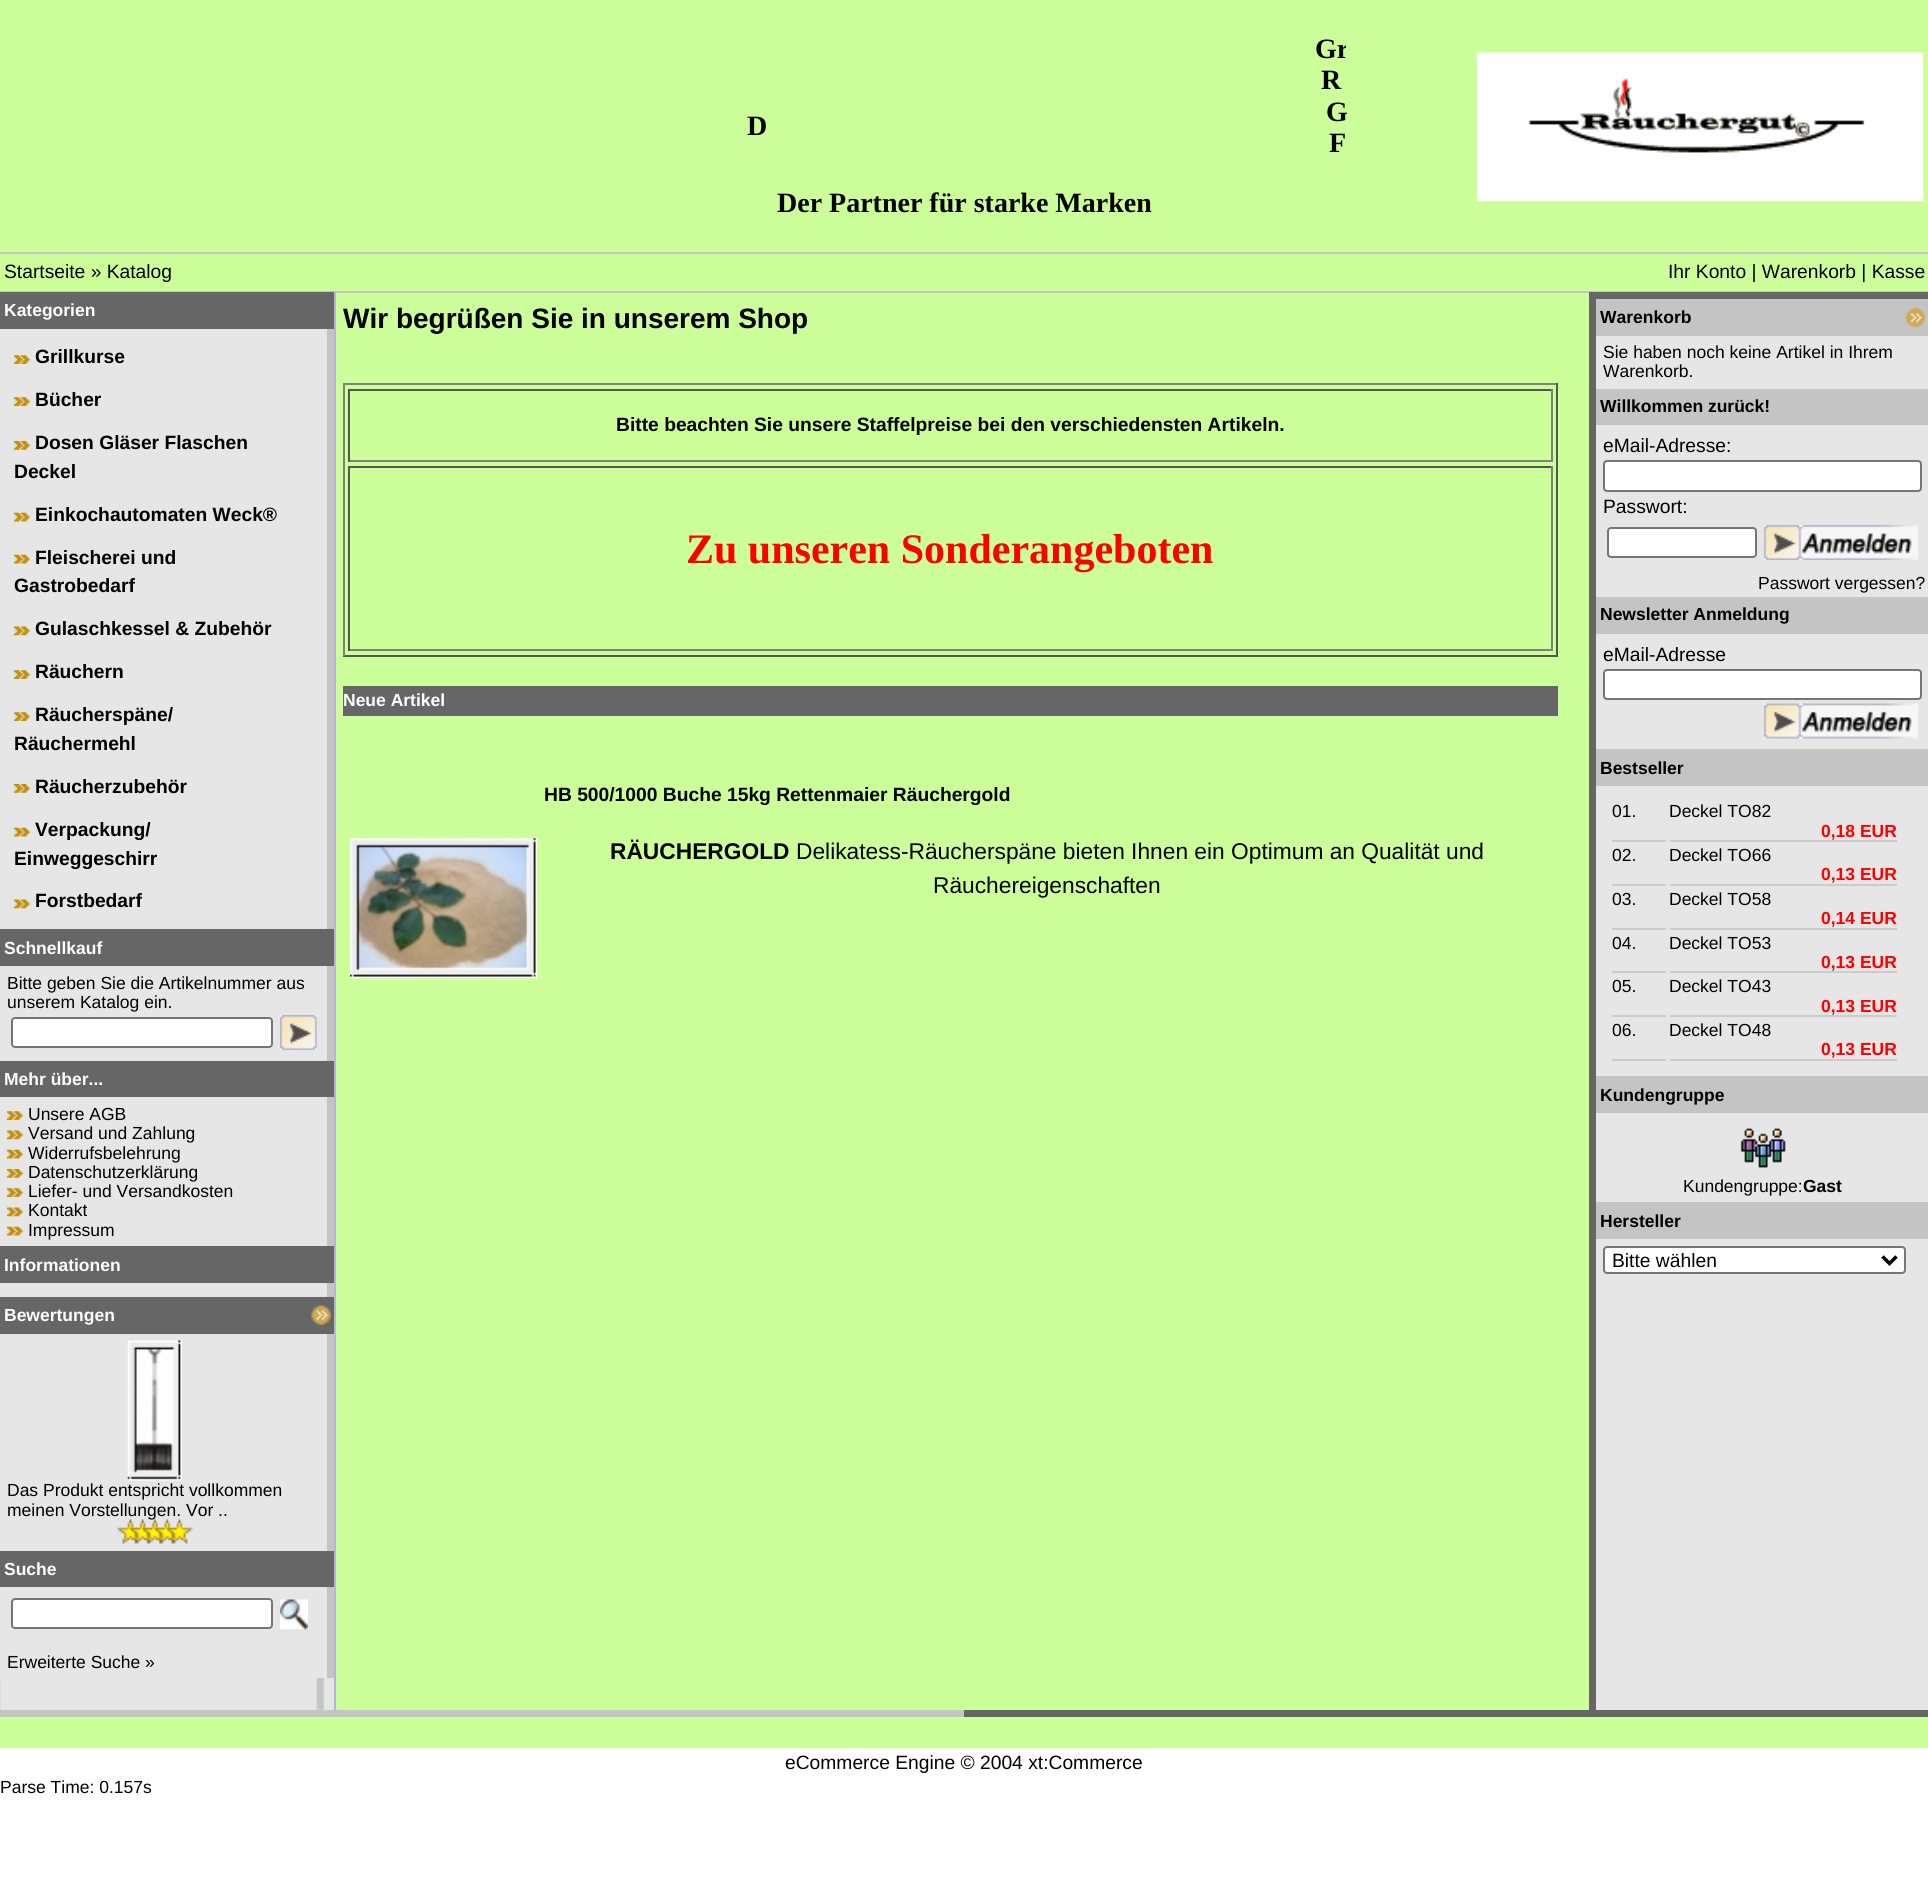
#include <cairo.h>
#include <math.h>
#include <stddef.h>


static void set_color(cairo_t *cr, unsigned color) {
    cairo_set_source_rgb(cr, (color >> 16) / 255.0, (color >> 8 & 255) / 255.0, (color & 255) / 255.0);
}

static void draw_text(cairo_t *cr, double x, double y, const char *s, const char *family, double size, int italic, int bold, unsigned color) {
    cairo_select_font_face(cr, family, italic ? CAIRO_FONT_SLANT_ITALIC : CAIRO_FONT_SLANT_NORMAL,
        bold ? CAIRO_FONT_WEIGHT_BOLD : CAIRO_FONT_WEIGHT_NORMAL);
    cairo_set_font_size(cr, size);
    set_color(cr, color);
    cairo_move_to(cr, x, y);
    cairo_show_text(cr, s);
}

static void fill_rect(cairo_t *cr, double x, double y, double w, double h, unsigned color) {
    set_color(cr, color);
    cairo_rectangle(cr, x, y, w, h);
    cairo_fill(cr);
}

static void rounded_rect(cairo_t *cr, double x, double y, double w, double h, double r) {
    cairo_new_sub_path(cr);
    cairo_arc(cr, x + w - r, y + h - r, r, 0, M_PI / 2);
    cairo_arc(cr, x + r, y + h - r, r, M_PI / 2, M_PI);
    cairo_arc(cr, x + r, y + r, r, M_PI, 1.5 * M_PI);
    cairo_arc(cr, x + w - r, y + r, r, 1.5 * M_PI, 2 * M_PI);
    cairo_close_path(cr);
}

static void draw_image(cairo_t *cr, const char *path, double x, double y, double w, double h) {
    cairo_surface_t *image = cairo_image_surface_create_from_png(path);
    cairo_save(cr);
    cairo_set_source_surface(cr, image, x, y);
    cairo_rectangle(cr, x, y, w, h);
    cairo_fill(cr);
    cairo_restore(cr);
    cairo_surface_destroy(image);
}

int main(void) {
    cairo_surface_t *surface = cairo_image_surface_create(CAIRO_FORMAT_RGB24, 1928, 1889);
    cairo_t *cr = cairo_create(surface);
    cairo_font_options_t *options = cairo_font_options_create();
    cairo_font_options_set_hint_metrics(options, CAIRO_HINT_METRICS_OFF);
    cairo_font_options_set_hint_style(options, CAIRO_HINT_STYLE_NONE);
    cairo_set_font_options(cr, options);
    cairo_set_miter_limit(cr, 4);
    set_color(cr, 0xFFFFFF);
    cairo_paint(cr);
    fill_rect(cr, 0, 0, 1928, 1748, 0xCCFF99);
    draw_text(cr, 747, 135, "D", "Liberation Serif", 28, 0, 1, 0x000000);
    cairo_save(cr);
    cairo_rectangle(cr, 777, 33, 569, 32);
    cairo_clip(cr);
    draw_text(cr, 1315, 58, "Gr", "Liberation Serif", 28, 0, 1, 0x000000);
    cairo_restore(cr);
    draw_text(cr, 1321, 89, "R", "Liberation Serif", 28, 0, 1, 0x000000);
    draw_text(cr, 1326, 121, "G", "Liberation Serif", 28, 0, 1, 0x000000);
    draw_text(cr, 1329, 152, "F", "Liberation Serif", 28, 0, 1, 0x000000);
    draw_text(cr, 777, 212, "Der Partner für starke Marken", "Liberation Serif", 28, 0, 1, 0x000000);
    draw_image(cr, "assets/img1.png", 1477, 52, 447, 150);
    fill_rect(cr, 0, 252, 1928, 2, 0xC5C5C5);
    fill_rect(cr, 0, 291, 1928, 2, 0xC5C5C5);
    draw_text(cr, 4, 278, "Startseite » Katalog", "Liberation Sans", 19.25, 0, 0, 0x000000);
    draw_text(cr, 1668, 278, "Ihr Konto | Warenkorb | Kasse", "Liberation Sans", 19.25, 0, 0, 0x000000);
    draw_image(cr, "assets/img2.png", 0, 1678, 334, 32);
    fill_rect(cr, 334, 292, 2, 1418, 0xB6B7CB);
    fill_rect(cr, 0, 292, 334, 37, 0x666666);
    draw_text(cr, 4, 316, "Kategorien", "Liberation Sans", 17.5, 0, 1, 0xFFFFFF);
    fill_rect(cr, 0, 329, 327, 600, 0xE6E6E6);
    fill_rect(cr, 327, 329, 7, 600, 0xC4C4C4);
    draw_image(cr, "assets/img3.png", 14, 355, 16, 9);
    draw_text(cr, 35, 363, "Grillkurse", "Liberation Sans", 19.25, 0, 1, 0x000000);
    draw_image(cr, "assets/img3.png", 14, 397, 16, 9);
    draw_text(cr, 35, 406, "Bücher", "Liberation Sans", 19.25, 0, 1, 0x000000);
    draw_image(cr, "assets/img4.png", 14, 441, 16, 9);
    draw_text(cr, 35, 449, "Dosen Gläser Flaschen", "Liberation Sans", 19.25, 0, 1, 0x000000);
    draw_text(cr, 14, 478, "Deckel", "Liberation Sans", 19.25, 0, 1, 0x000000);
    draw_image(cr, "assets/img5.png", 14, 512, 16, 10);
    draw_text(cr, 35, 521, "Einkochautomaten Weck®", "Liberation Sans", 19.25, 0, 1, 0x000000);
    draw_image(cr, "assets/img5.png", 14, 554, 16, 10);
    draw_text(cr, 35, 564, "Fleischerei und", "Liberation Sans", 19.25, 0, 1, 0x000000);
    draw_text(cr, 14, 592, "Gastrobedarf", "Liberation Sans", 19.25, 0, 1, 0x000000);
    draw_image(cr, "assets/img6.png", 14, 626, 16, 10);
    draw_text(cr, 35, 635, "Gulaschkessel & Zubehör", "Liberation Sans", 19.25, 0, 1, 0x000000);
    draw_image(cr, "assets/img3.png", 14, 670, 16, 9);
    draw_text(cr, 35, 678, "Räuchern", "Liberation Sans", 19.25, 0, 1, 0x000000);
    draw_image(cr, "assets/img3.png", 14, 712, 16, 9);
    draw_text(cr, 35, 721, "Räucherspäne/", "Liberation Sans", 19.25, 0, 1, 0x000000);
    draw_text(cr, 14, 750, "Räuchermehl", "Liberation Sans", 19.25, 0, 1, 0x000000);
    draw_image(cr, "assets/img4.png", 14, 784, 16, 9);
    draw_text(cr, 35, 793, "Räucherzubehör", "Liberation Sans", 19.25, 0, 1, 0x000000);
    draw_image(cr, "assets/img5.png", 14, 827, 16, 10);
    draw_text(cr, 35, 836, "Verpackung/", "Liberation Sans", 19.25, 0, 1, 0x000000);
    draw_text(cr, 14, 865, "Einweggeschirr", "Liberation Sans", 19.25, 0, 1, 0x000000);
    draw_image(cr, "assets/img6.png", 14, 899, 16, 10);
    draw_text(cr, 35, 907, "Forstbedarf", "Liberation Sans", 19.25, 0, 1, 0x000000);
    fill_rect(cr, 0, 929, 334, 37, 0x666666);
    draw_text(cr, 4, 954, "Schnellkauf", "Liberation Sans", 17.5, 0, 1, 0xFFFFFF);
    fill_rect(cr, 0, 966, 327, 95, 0xE6E6E6);
    fill_rect(cr, 327, 966, 7, 95, 0xC4C4C4);
    draw_text(cr, 7, 989, "Bitte geben Sie die Artikelnummer aus", "Liberation Sans", 17.5, 0, 0, 0x000000);
    draw_text(cr, 7, 1008, "unserem Katalog ein.", "Liberation Sans", 17.5, 0, 0, 0x000000);
    set_color(cr, 0xFFFFFF);
    rounded_rect(cr, 12, 1018, 260, 29, 3);
    cairo_fill_preserve(cr);
    set_color(cr, 0x767676);
    cairo_stroke(cr);
    draw_image(cr, "assets/img7.png", 280, 1015, 37, 35);
    fill_rect(cr, 0, 1061, 334, 36, 0x666666);
    draw_text(cr, 4, 1085, "Mehr über...", "Liberation Sans", 17.5, 0, 1, 0xFFFFFF);
    fill_rect(cr, 0, 1097, 327, 149, 0xE6E6E6);
    fill_rect(cr, 327, 1097, 7, 149, 0xC4C4C4);
    draw_image(cr, "assets/img3.png", 7, 1111, 16, 9);
    draw_text(cr, 28, 1120, "Unsere AGB", "Liberation Sans", 17.5, 0, 0, 0x000000);
    draw_image(cr, "assets/img6.png", 7, 1130, 16, 10);
    draw_text(cr, 28, 1139, "Versand und Zahlung", "Liberation Sans", 17.5, 0, 0, 0x000000);
    draw_image(cr, "assets/img5.png", 7, 1149, 16, 10);
    draw_text(cr, 28, 1159, "Widerrufsbelehrung", "Liberation Sans", 17.5, 0, 0, 0x000000);
    draw_image(cr, "assets/img4.png", 7, 1169, 16, 9);
    draw_text(cr, 28, 1178, "Datenschutzerklärung", "Liberation Sans", 17.5, 0, 0, 0x000000);
    draw_image(cr, "assets/img3.png", 7, 1188, 16, 9);
    draw_text(cr, 28, 1197, "Liefer- und Versandkosten", "Liberation Sans", 17.5, 0, 0, 0x000000);
    draw_image(cr, "assets/img6.png", 7, 1207, 16, 10);
    draw_text(cr, 28, 1216, "Kontakt", "Liberation Sans", 17.5, 0, 0, 0x000000);
    draw_image(cr, "assets/img5.png", 7, 1226, 16, 10);
    draw_text(cr, 28, 1236, "Impressum", "Liberation Sans", 17.5, 0, 0, 0x000000);
    fill_rect(cr, 0, 1246, 334, 37, 0x666666);
    draw_text(cr, 4, 1271, "Informationen", "Liberation Sans", 17.5, 0, 1, 0xFFFFFF);
    fill_rect(cr, 0, 1283, 327, 14, 0xE6E6E6);
    fill_rect(cr, 327, 1283, 7, 14, 0xC4C4C4);
    fill_rect(cr, 0, 1297, 334, 37, 0x666666);
    draw_text(cr, 4, 1321, "Bewertungen", "Liberation Sans", 17.5, 0, 1, 0xFFFFFF);
    draw_image(cr, "assets/img8.png", 311, 1305, 20, 20);
    fill_rect(cr, 0, 1334, 327, 217, 0xE6E6E6);
    fill_rect(cr, 327, 1334, 7, 217, 0xC4C4C4);
    draw_image(cr, "assets/img9.png", 127, 1340, 55, 141);
    draw_text(cr, 7, 1496, "Das Produkt entspricht vollkommen", "Liberation Sans", 17.5, 0, 0, 0x000000);
    draw_text(cr, 7, 1516, "meinen Vorstellungen. Vor ..", "Liberation Sans", 17.5, 0, 0, 0x000000);
    draw_image(cr, "assets/img10.png", 117, 1519, 76, 25);
    fill_rect(cr, 0, 1551, 334, 36, 0x666666);
    draw_text(cr, 4, 1575, "Suche", "Liberation Sans", 17.5, 0, 1, 0xFFFFFF);
    fill_rect(cr, 0, 1587, 327, 91, 0xE6E6E6);
    fill_rect(cr, 327, 1587, 7, 91, 0xC4C4C4);
    set_color(cr, 0xFFFFFF);
    rounded_rect(cr, 12, 1599, 260, 29, 3);
    cairo_fill_preserve(cr);
    set_color(cr, 0x767676);
    cairo_stroke(cr);
    draw_image(cr, "assets/img11.png", 280, 1599, 28, 31);
    draw_text(cr, 7, 1668, "Erweiterte Suche »", "Liberation Sans", 17.5, 0, 0, 0x000000);
    draw_text(cr, 343, 328, "Wir begrüßen Sie in unserem Shop", "Liberation Sans", 28, 0, 1, 0x000000);
    fill_rect(cr, 343, 383, 1215, 2, 0x808080);
    fill_rect(cr, 1556, 383, 2, 273, 0x555555);
    fill_rect(cr, 343, 655, 1215, 2, 0x555555);
    fill_rect(cr, 343, 383, 2, 273, 0x808080);
    fill_rect(cr, 348, 389, 1204, 2, 0x555555);
    fill_rect(cr, 1551, 389, 2, 73, 0x808080);
    fill_rect(cr, 348, 460, 1204, 2, 0x808080);
    fill_rect(cr, 348, 389, 2, 73, 0x555555);
    draw_text(cr, 616, 431, "Bitte beachten Sie unsere Staffelpreise bei den verschiedensten Artikeln.", "Liberation Sans", 19.25, 0, 1, 0x000000);
    fill_rect(cr, 348, 466, 1204, 2, 0x555555);
    fill_rect(cr, 1551, 466, 2, 185, 0x808080);
    fill_rect(cr, 348, 649, 1204, 2, 0x808080);
    fill_rect(cr, 348, 466, 2, 185, 0x555555);
    draw_text(cr, 686, 563, "Zu unseren Sonderangeboten", "Liberation Serif", 42, 0, 1, 0xFF0000);
    fill_rect(cr, 343, 686, 1215, 30, 0x666666);
    draw_text(cr, 343, 706, "Neue Artikel", "Liberation Sans", 17.5, 0, 1, 0xFFFFFF);
    draw_text(cr, 544, 801, "HB 500/1000 Buche 15kg Rettenmaier Räuchergold", "Liberation Sans", 19.25, 0, 1, 0x000000);
    draw_image(cr, "assets/img12.png", 350, 838, 188, 141);
    draw_text(cr, 610, 859, "RÄUCHERGOLD", "Liberation Sans", 22.75, 0, 1, 0x000000);
    draw_text(cr, 796, 859, "Delikatess-Räucherspäne bieten Ihnen ein Optimum an Qualität und", "Liberation Sans", 22.75, 0, 0, 0x000000);
    draw_text(cr, 933, 893, "Räuchereigenschaften", "Liberation Sans", 22.75, 0, 0, 0x000000);
    fill_rect(cr, 1596, 336, 332, 1374, 0xE6E6E6);
    fill_rect(cr, 1589, 292, 339, 7, 0x666666);
    fill_rect(cr, 1589, 292, 7, 1418, 0x666666);
    fill_rect(cr, 1596, 299, 332, 37, 0xC4C4C4);
    draw_text(cr, 1600, 323, "Warenkorb", "Liberation Sans", 17.5, 0, 1, 0x000000);
    draw_image(cr, "assets/img13.png", 1905, 308, 20, 20);
    draw_text(cr, 1603, 358, "Sie haben noch keine Artikel in Ihrem", "Liberation Sans", 17.5, 0, 0, 0x000000);
    draw_text(cr, 1603, 377, "Warenkorb.", "Liberation Sans", 17.5, 0, 0, 0x000000);
    fill_rect(cr, 1596, 389, 332, 36, 0xC4C4C4);
    draw_text(cr, 1600, 412, "Willkommen zurück!", "Liberation Sans", 17.5, 0, 1, 0x000000);
    draw_text(cr, 1603, 452, "eMail-Adresse:", "Liberation Sans", 19.25, 0, 0, 0x000000);
    set_color(cr, 0xFFFFFF);
    rounded_rect(cr, 1604, 461, 317, 30, 3);
    cairo_fill_preserve(cr);
    set_color(cr, 0x767676);
    cairo_stroke(cr);
    draw_text(cr, 1603, 513, "Passwort:", "Liberation Sans", 19.25, 0, 0, 0x000000);
    set_color(cr, 0xFFFFFF);
    rounded_rect(cr, 1608, 528, 148, 29, 3);
    cairo_fill_preserve(cr);
    set_color(cr, 0x767676);
    cairo_stroke(cr);
    draw_image(cr, "assets/img14.png", 1764, 525, 154, 35);
    draw_text(cr, 1758, 589, "Passwort vergessen?", "Liberation Sans", 17.5, 0, 0, 0x000000);
    fill_rect(cr, 1596, 597, 332, 37, 0xC4C4C4);
    draw_text(cr, 1600, 620, "Newsletter Anmeldung", "Liberation Sans", 17.5, 0, 1, 0x000000);
    draw_text(cr, 1603, 661, "eMail-Adresse", "Liberation Sans", 19.25, 0, 0, 0x000000);
    set_color(cr, 0xFFFFFF);
    rounded_rect(cr, 1604, 670, 317, 29, 3);
    cairo_fill_preserve(cr);
    set_color(cr, 0x767676);
    cairo_stroke(cr);
    draw_image(cr, "assets/img15.png", 1764, 703, 154, 36);
    fill_rect(cr, 1596, 749, 332, 37, 0xC4C4C4);
    draw_text(cr, 1600, 774, "Bestseller", "Liberation Sans", 17.5, 0, 1, 0x000000);
    fill_rect(cr, 1612, 840, 54, 2, 0xCCCCCC);
    draw_text(cr, 1612, 817, "01.", "Liberation Sans", 17.5, 0, 0, 0x000000);
    fill_rect(cr, 1670, 840, 227, 2, 0xCCCCCC);
    draw_text(cr, 1669, 817, "Deckel TO82", "Liberation Sans", 17.5, 0, 0, 0x000000);
    draw_text(cr, 1821, 837, "0,18 EUR", "Liberation Sans", 17.5, 0, 1, 0xFF0000);
    fill_rect(cr, 1612, 884, 54, 2, 0xCCCCCC);
    draw_text(cr, 1612, 861, "02.", "Liberation Sans", 17.5, 0, 0, 0x000000);
    fill_rect(cr, 1670, 884, 227, 2, 0xCCCCCC);
    draw_text(cr, 1669, 861, "Deckel TO66", "Liberation Sans", 17.5, 0, 0, 0x000000);
    draw_text(cr, 1821, 880, "0,13 EUR", "Liberation Sans", 17.5, 0, 1, 0xFF0000);
    fill_rect(cr, 1612, 928, 54, 2, 0xCCCCCC);
    draw_text(cr, 1612, 905, "03.", "Liberation Sans", 17.5, 0, 0, 0x000000);
    fill_rect(cr, 1670, 928, 227, 2, 0xCCCCCC);
    draw_text(cr, 1669, 905, "Deckel TO58", "Liberation Sans", 17.5, 0, 0, 0x000000);
    draw_text(cr, 1821, 924, "0,14 EUR", "Liberation Sans", 17.5, 0, 1, 0xFF0000);
    fill_rect(cr, 1612, 971, 54, 2, 0xCCCCCC);
    draw_text(cr, 1612, 949, "04.", "Liberation Sans", 17.5, 0, 0, 0x000000);
    fill_rect(cr, 1670, 971, 227, 2, 0xCCCCCC);
    draw_text(cr, 1669, 949, "Deckel TO53", "Liberation Sans", 17.5, 0, 0, 0x000000);
    draw_text(cr, 1821, 968, "0,13 EUR", "Liberation Sans", 17.5, 0, 1, 0xFF0000);
    fill_rect(cr, 1612, 1015, 54, 2, 0xCCCCCC);
    draw_text(cr, 1612, 992, "05.", "Liberation Sans", 17.5, 0, 0, 0x000000);
    fill_rect(cr, 1670, 1015, 227, 2, 0xCCCCCC);
    draw_text(cr, 1669, 992, "Deckel TO43", "Liberation Sans", 17.5, 0, 0, 0x000000);
    draw_text(cr, 1821, 1012, "0,13 EUR", "Liberation Sans", 17.5, 0, 1, 0xFF0000);
    fill_rect(cr, 1612, 1059, 54, 2, 0xCCCCCC);
    draw_text(cr, 1612, 1036, "06.", "Liberation Sans", 17.5, 0, 0, 0x000000);
    fill_rect(cr, 1670, 1059, 227, 2, 0xCCCCCC);
    draw_text(cr, 1669, 1036, "Deckel TO48", "Liberation Sans", 17.5, 0, 0, 0x000000);
    draw_text(cr, 1821, 1055, "0,13 EUR", "Liberation Sans", 17.5, 0, 1, 0xFF0000);
    fill_rect(cr, 1596, 1076, 332, 37, 0xC4C4C4);
    draw_text(cr, 1600, 1101, "Kundengruppe", "Liberation Sans", 17.5, 0, 1, 0x000000);
    draw_image(cr, "assets/img16.png", 1740, 1128, 46, 40);
    draw_text(cr, 1683, 1192, "Kundengruppe:", "Liberation Sans", 17.5, 0, 0, 0x000000);
    draw_text(cr, 1803, 1192, "Gast", "Liberation Sans", 17.5, 0, 1, 0x000000);
    fill_rect(cr, 1596, 1202, 332, 37, 0xC4C4C4);
    draw_text(cr, 1600, 1227, "Hersteller", "Liberation Sans", 17.5, 0, 1, 0x000000);
    set_color(cr, 0xFFFFFF);
    rounded_rect(cr, 1604, 1247, 301, 26, 3);
    cairo_fill_preserve(cr);
    set_color(cr, 0x767676);
    cairo_stroke(cr);
    cairo_new_path(cr);
    cairo_move_to(cr, 1882.5, 1256.5);
    cairo_line_to(cr, 1889.5, 1263.5);
    cairo_line_to(cr, 1896.5, 1256.5);
    set_color(cr, 0x000000);
    cairo_set_line_width(cr, 3.5);
    cairo_stroke(cr);
    draw_text(cr, 1612, 1267, "Bitte wählen", "Liberation Sans", 19.25, 0, 0, 0x000000);
    fill_rect(cr, 0, 1710, 964, 7, 0xC5C5C5);
    fill_rect(cr, 964, 1710, 964, 7, 0x666666);
    draw_text(cr, 785, 1769, "eCommerce Engine © 2004 xt:Commerce", "Liberation Sans", 19.25, 0, 0, 0x000000);
    draw_text(cr, 0, 1793, "Parse Time: 0.157s", "Liberation Sans", 17.5, 0, 0, 0x000000);
    cairo_surface_write_to_png(surface, "output.png");
    cairo_font_options_destroy(options);
    cairo_destroy(cr);
    cairo_surface_destroy(surface);
    return 0;
}
